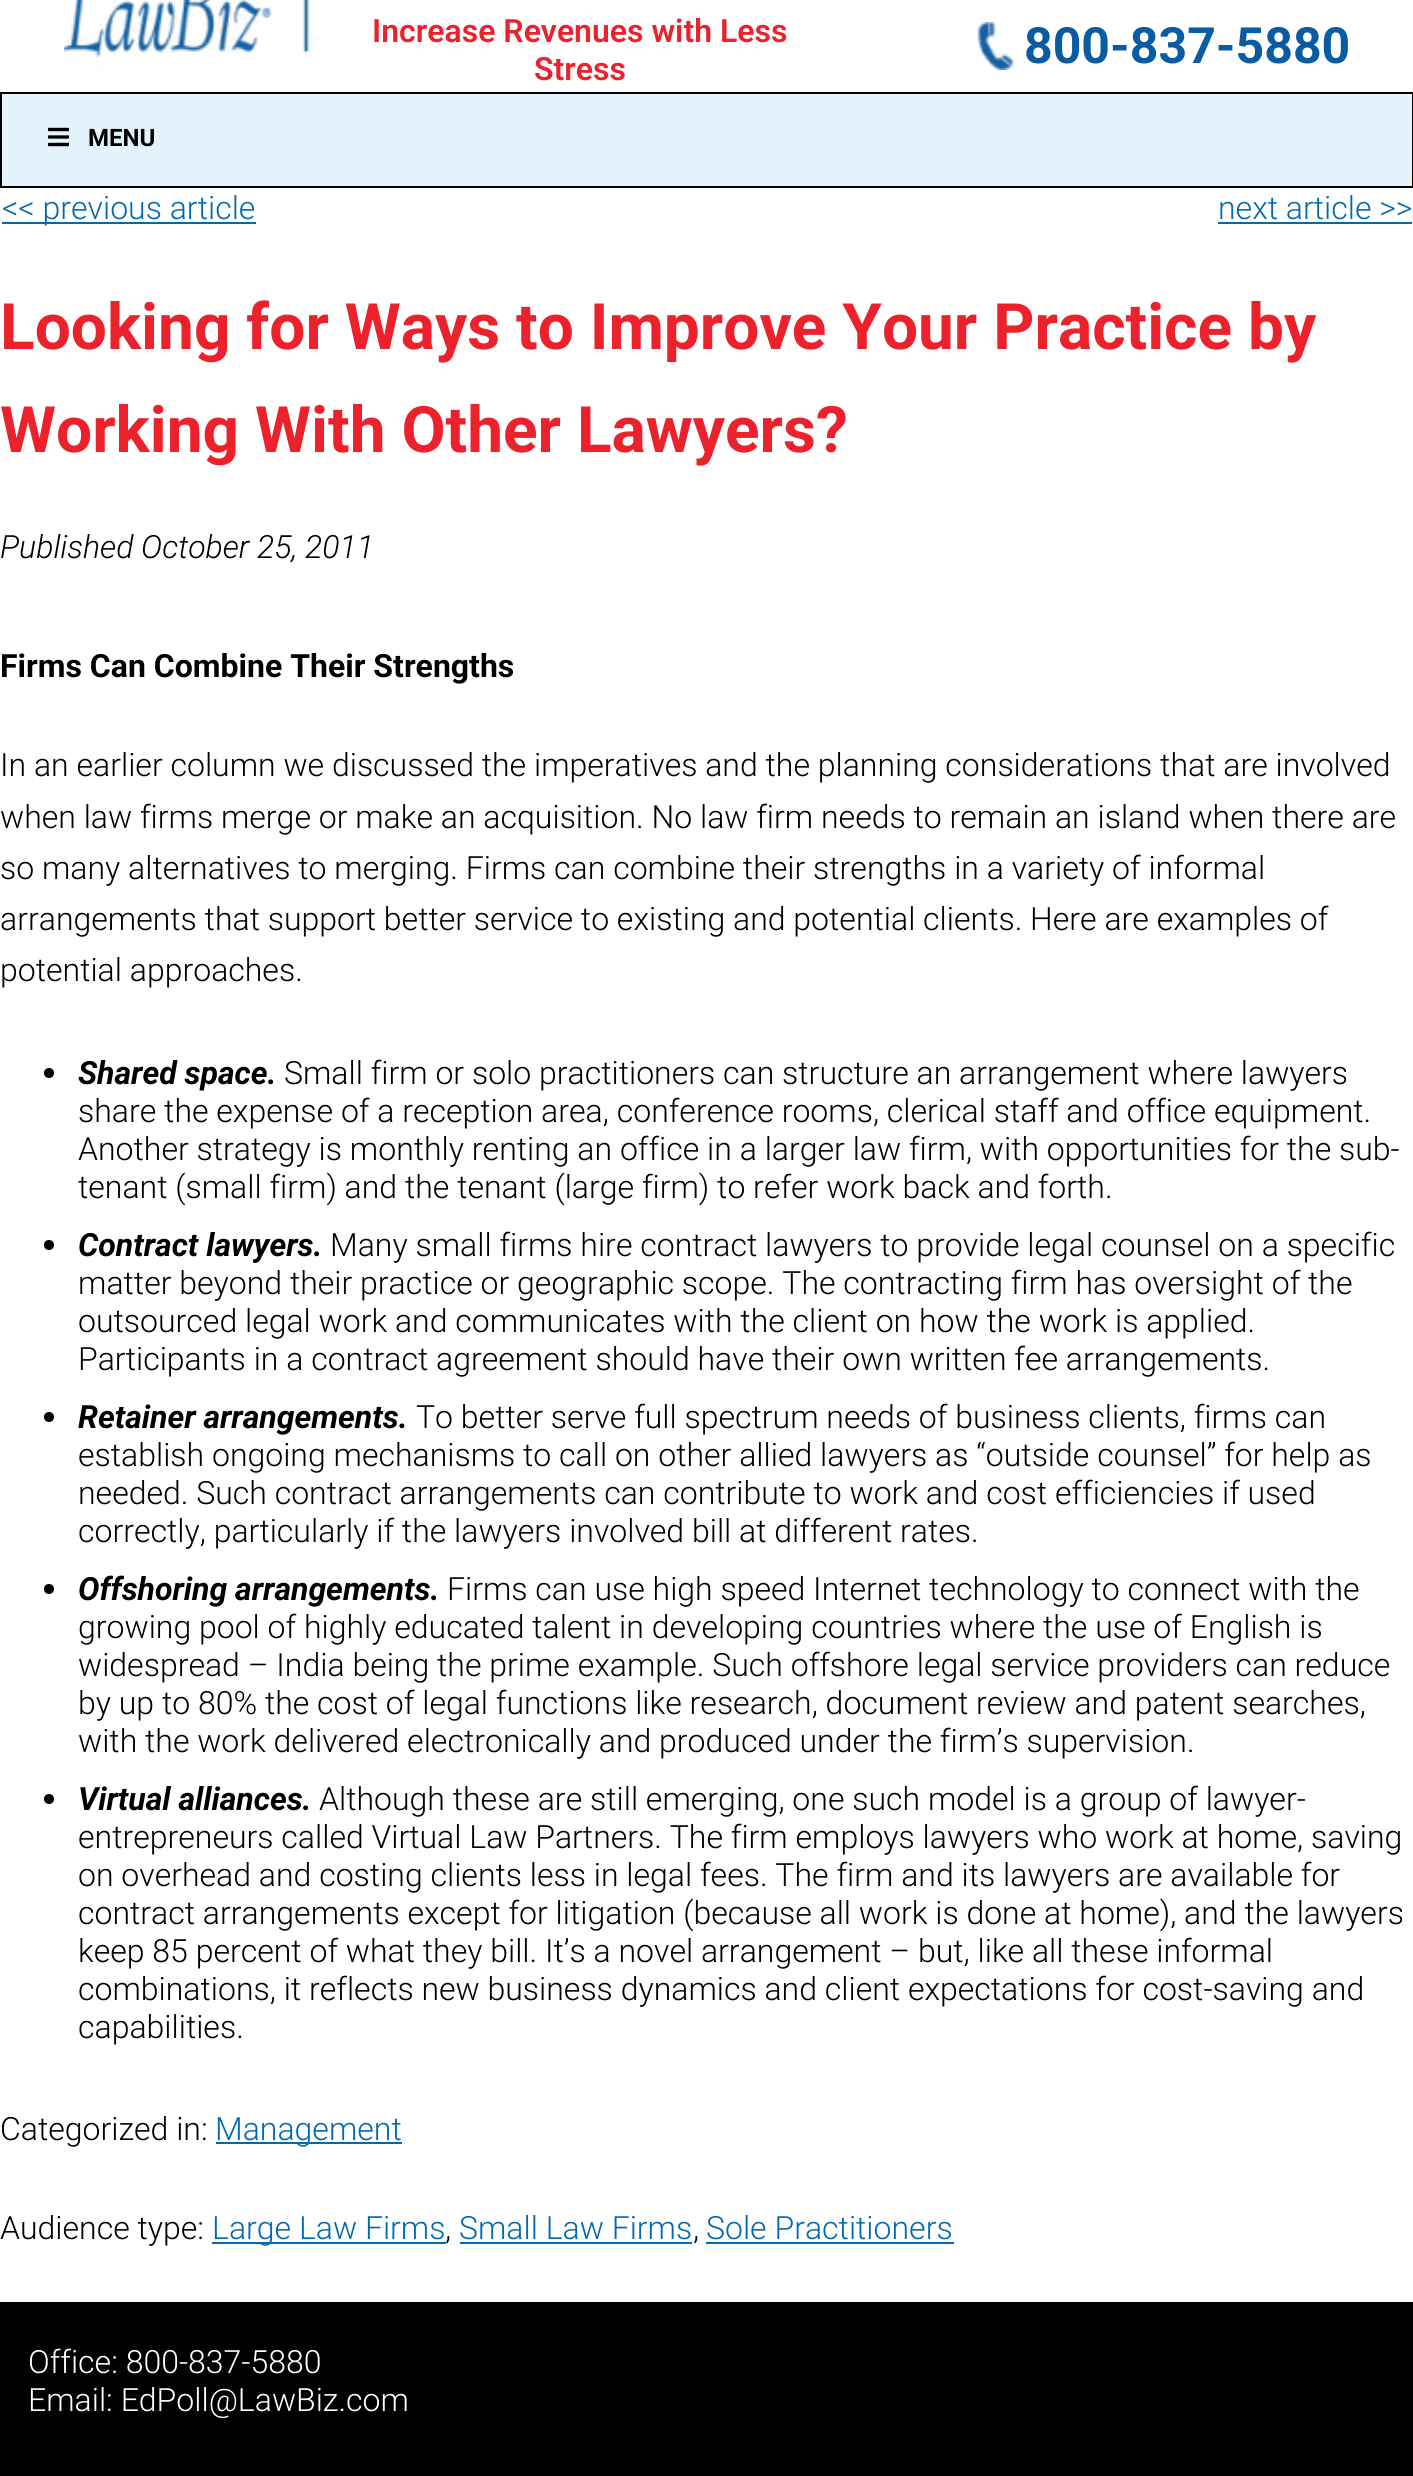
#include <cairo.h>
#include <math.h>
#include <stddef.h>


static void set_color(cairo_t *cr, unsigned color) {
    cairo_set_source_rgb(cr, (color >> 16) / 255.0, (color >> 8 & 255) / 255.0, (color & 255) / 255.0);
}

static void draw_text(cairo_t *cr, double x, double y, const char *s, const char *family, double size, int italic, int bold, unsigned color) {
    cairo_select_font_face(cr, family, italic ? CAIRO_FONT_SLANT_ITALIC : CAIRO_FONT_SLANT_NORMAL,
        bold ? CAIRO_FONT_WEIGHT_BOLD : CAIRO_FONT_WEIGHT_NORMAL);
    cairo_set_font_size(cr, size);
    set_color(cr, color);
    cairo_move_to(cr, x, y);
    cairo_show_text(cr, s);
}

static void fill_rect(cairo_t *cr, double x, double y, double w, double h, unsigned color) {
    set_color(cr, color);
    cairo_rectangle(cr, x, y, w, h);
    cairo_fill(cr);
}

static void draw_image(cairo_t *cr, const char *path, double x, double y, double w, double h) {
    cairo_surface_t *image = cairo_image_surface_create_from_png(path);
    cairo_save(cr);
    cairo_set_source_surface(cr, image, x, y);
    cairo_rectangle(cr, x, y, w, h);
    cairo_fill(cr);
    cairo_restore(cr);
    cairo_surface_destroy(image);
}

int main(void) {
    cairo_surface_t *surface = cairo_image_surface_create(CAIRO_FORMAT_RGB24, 1413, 2476);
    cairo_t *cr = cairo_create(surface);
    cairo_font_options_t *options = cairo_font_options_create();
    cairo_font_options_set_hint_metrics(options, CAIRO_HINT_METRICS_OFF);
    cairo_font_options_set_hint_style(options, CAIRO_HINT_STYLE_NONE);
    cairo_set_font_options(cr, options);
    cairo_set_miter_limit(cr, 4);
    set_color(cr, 0xFFFFFF);
    cairo_paint(cr);
    draw_image(cr, "assets/img1.png", 64, 0, 254, 68);
    draw_text(cr, 372, 42, "Increase Revenues with Less", "Roboto SemiBold", 32, 0, 0, 0xEB212C);
    draw_text(cr, 534, 80, "Stress", "Roboto SemiBold", 32, 0, 0, 0xEB212C);
    draw_image(cr, "assets/img2.png", 974, 22, 42, 48);
    draw_text(cr, 1024, 63, "800-837-5880", "Roboto", 50, 0, 1, 0x095CA2);
    fill_rect(cr, 4, 96, 1408, 90, 0xE4F2FC);
    cairo_save(cr);
    cairo_rectangle(cr, 2, 94, 1410, 92);
    cairo_clip(cr);
    set_color(cr, 0xE7F3FC);
    cairo_set_fill_rule(cr, CAIRO_FILL_RULE_EVEN_ODD);
    cairo_new_path(cr);
    cairo_move_to(cr, -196, -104);
    cairo_line_to(cr, 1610, -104);
    cairo_line_to(cr, 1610, 384);
    cairo_line_to(cr, -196, 384);
    cairo_close_path(cr);
    cairo_move_to(cr, 4, 96);
    cairo_line_to(cr, 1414, 96);
    cairo_line_to(cr, 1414, 188);
    cairo_line_to(cr, 4, 188);
    cairo_close_path(cr);
    cairo_fill(cr);
    cairo_restore(cr);
    cairo_rectangle(cr, 1, 93, 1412, 94);
    set_color(cr, 0x000000);
    cairo_stroke(cr);
    draw_image(cr, "assets/img3.png", 48, 127, 21, 20);
    draw_text(cr, 88, 146, "MENU", "Roboto", 24, 0, 1, 0x000000);
    fill_rect(cr, 2, 222, 254, 2, 0x0169AD);
    draw_text(cr, 2, 219, "<< previous article", "Roboto Light", 32, 0, 0, 0x0169AD);
    draw_text(cr, 1218, 219, "next article >>", "Roboto Light", 32, 0, 0, 0x0169AD);
    fill_rect(cr, 1218, 222, 194, 2, 0x0169AD);
    draw_text(cr, 0, 349, "Looking for Ways to Improve Your Practice by", "Roboto", 64, 0, 1, 0xEB212C);
    draw_text(cr, 0, 452, "Working With Other Lawyers?", "Roboto", 64, 0, 1, 0xEB212C);
    draw_text(cr, 0, 558, "Published October 25, 2011", "Roboto Light", 32, 1, 0, 0x000000);
    draw_text(cr, 0, 677, "Firms Can Combine Their Strengths", "Roboto", 32, 0, 1, 0x000000);
    draw_text(cr, 0, 776, "In an earlier column we discussed the imperatives and the planning considerations that are involved", "Roboto Light", 32, 0, 0, 0x000000);
    draw_text(cr, 0, 828, "when law firms merge or make an acquisition. No law firm needs to remain an island when there are", "Roboto Light", 32, 0, 0, 0x000000);
    draw_text(cr, 0, 879, "so many alternatives to merging. Firms can combine their strengths in a variety of informal", "Roboto Light", 32, 0, 0, 0x000000);
    draw_text(cr, 0, 930, "arrangements that support better service to existing and potential clients. Here are examples of", "Roboto Light", 32, 0, 0, 0x000000);
    draw_text(cr, 0, 981, "potential approaches.", "Roboto Light", 32, 0, 0, 0x000000);
    cairo_new_path(cr);
    cairo_arc(cr, 49, 1073, 5, 0, 2 * M_PI);
    cairo_fill(cr);
    draw_text(cr, 78, 1084, "Shared space.", "Roboto", 32, 1, 1, 0x000000);
    draw_text(cr, 284, 1084, "Small firm or solo practitioners can structure an arrangement where lawyers", "Roboto Light", 32, 0, 0, 0x000000);
    draw_text(cr, 78, 1122, "share the expense of a reception area, conference rooms, clerical staff and office equipment.", "Roboto Light", 32, 0, 0, 0x000000);
    draw_text(cr, 78, 1160, "Another strategy is monthly renting an office in a larger law firm, with opportunities for the sub-", "Roboto Light", 32, 0, 0, 0x000000);
    draw_text(cr, 78, 1198, "tenant (small firm) and the tenant (large firm) to refer work back and forth.", "Roboto Light", 32, 0, 0, 0x000000);
    cairo_new_path(cr);
    cairo_arc(cr, 49, 1245, 5, 0, 2 * M_PI);
    cairo_fill(cr);
    draw_text(cr, 78, 1256, "Contract lawyers.", "Roboto", 32, 1, 1, 0x000000);
    draw_text(cr, 330, 1256, "Many small firms hire contract lawyers to provide legal counsel on a specific", "Roboto Light", 32, 0, 0, 0x000000);
    draw_text(cr, 78, 1294, "matter beyond their practice or geographic scope. The contracting firm has oversight of the", "Roboto Light", 32, 0, 0, 0x000000);
    draw_text(cr, 78, 1332, "outsourced legal work and communicates with the client on how the work is applied.", "Roboto Light", 32, 0, 0, 0x000000);
    draw_text(cr, 78, 1370, "Participants in a contract agreement should have their own written fee arrangements.", "Roboto Light", 32, 0, 0, 0x000000);
    cairo_new_path(cr);
    cairo_arc(cr, 49, 1417, 5, 0, 2 * M_PI);
    cairo_fill(cr);
    draw_text(cr, 78, 1428, "Retainer arrangements.", "Roboto", 32, 1, 1, 0x000000);
    draw_text(cr, 416, 1428, "To better serve full spectrum needs of business clients, firms can", "Roboto Light", 32, 0, 0, 0x000000);
    draw_text(cr, 78, 1466, "establish ongoing mechanisms to call on other allied lawyers as “outside counsel” for help as", "Roboto Light", 32, 0, 0, 0x000000);
    draw_text(cr, 78, 1504, "needed. Such contract arrangements can contribute to work and cost efficiencies if used", "Roboto Light", 32, 0, 0, 0x000000);
    draw_text(cr, 78, 1542, "correctly, particularly if the lawyers involved bill at different rates.", "Roboto Light", 32, 0, 0, 0x000000);
    cairo_new_path(cr);
    cairo_arc(cr, 49, 1589, 5, 0, 2 * M_PI);
    cairo_fill(cr);
    draw_text(cr, 78, 1600, "Offshoring arrangements.", "Roboto", 32, 1, 1, 0x000000);
    draw_text(cr, 447, 1600, "Firms can use high speed Internet technology to connect with the", "Roboto Light", 32, 0, 0, 0x000000);
    draw_text(cr, 78, 1638, "growing pool of highly educated talent in developing countries where the use of English is", "Roboto Light", 32, 0, 0, 0x000000);
    draw_text(cr, 78, 1676, "widespread – India being the prime example. Such offshore legal service providers can reduce", "Roboto Light", 32, 0, 0, 0x000000);
    draw_text(cr, 78, 1714, "by up to 80% the cost of legal functions like research, document review and patent searches,", "Roboto Light", 32, 0, 0, 0x000000);
    draw_text(cr, 78, 1752, "with the work delivered electronically and produced under the firm’s supervision.", "Roboto Light", 32, 0, 0, 0x000000);
    cairo_new_path(cr);
    cairo_arc(cr, 49, 1799, 5, 0, 2 * M_PI);
    cairo_fill(cr);
    draw_text(cr, 78, 1810, "Virtual alliances.", "Roboto", 32, 1, 1, 0x000000);
    draw_text(cr, 319, 1810, "Although these are still emerging, one such model is a group of lawyer-", "Roboto Light", 32, 0, 0, 0x000000);
    draw_text(cr, 78, 1848, "entrepreneurs called Virtual Law Partners. The firm employs lawyers who work at home, saving", "Roboto Light", 32, 0, 0, 0x000000);
    draw_text(cr, 78, 1886, "on overhead and costing clients less in legal fees. The firm and its lawyers are available for", "Roboto Light", 32, 0, 0, 0x000000);
    draw_text(cr, 78, 1924, "contract arrangements except for litigation (because all work is done at home), and the lawyers", "Roboto Light", 32, 0, 0, 0x000000);
    draw_text(cr, 78, 1962, "keep 85 percent of what they bill. It’s a novel arrangement – but, like all these informal", "Roboto Light", 32, 0, 0, 0x000000);
    draw_text(cr, 78, 2000, "combinations, it reflects new business dynamics and client expectations for cost-saving and", "Roboto Light", 32, 0, 0, 0x000000);
    draw_text(cr, 78, 2038, "capabilities.", "Roboto Light", 32, 0, 0, 0x000000);
    draw_text(cr, 0, 2140, "Categorized in:", "Roboto Light", 32, 0, 0, 0x000000);
    fill_rect(cr, 216, 2142, 186, 2, 0x0169AD);
    draw_text(cr, 215, 2140, "Management", "Roboto Light", 32, 0, 0, 0x0169AD);
    draw_text(cr, 0, 2239, "Audience type:", "Roboto Light", 32, 0, 0, 0x000000);
    fill_rect(cr, 212, 2242, 234, 2, 0x0169AD);
    draw_text(cr, 212, 2239, "Large Law Firms", "Roboto Light", 32, 0, 0, 0x0169AD);
    draw_text(cr, 445, 2239, ",", "Roboto Light", 32, 0, 0, 0x000000);
    draw_text(cr, 459, 2239, "Small Law Firms", "Roboto Light", 32, 0, 0, 0x0169AD);
    fill_rect(cr, 460, 2242, 232, 2, 0x0169AD);
    draw_text(cr, 693, 2239, ",", "Roboto Light", 32, 0, 0, 0x000000);
    draw_text(cr, 706, 2239, "Sole Practitioners", "Roboto Light", 32, 0, 0, 0x0169AD);
    fill_rect(cr, 706, 2242, 248, 2, 0x0169AD);
    fill_rect(cr, 0, 2302, 1413, 174, 0x000000);
    draw_text(cr, 28, 2373, "Office: 800-837-5880", "Roboto Light", 32, 0, 0, 0xFFFFFF);
    draw_text(cr, 28, 2411, "Email: EdPoll@LawBiz.com", "Roboto Light", 32, 0, 0, 0xFFFFFF);
    cairo_surface_write_to_png(surface, "output.png");
    cairo_font_options_destroy(options);
    cairo_destroy(cr);
    cairo_surface_destroy(surface);
    return 0;
}
